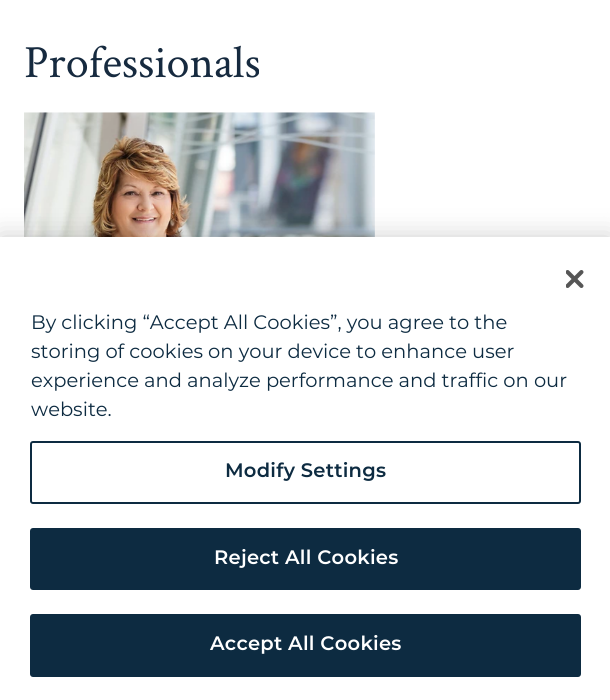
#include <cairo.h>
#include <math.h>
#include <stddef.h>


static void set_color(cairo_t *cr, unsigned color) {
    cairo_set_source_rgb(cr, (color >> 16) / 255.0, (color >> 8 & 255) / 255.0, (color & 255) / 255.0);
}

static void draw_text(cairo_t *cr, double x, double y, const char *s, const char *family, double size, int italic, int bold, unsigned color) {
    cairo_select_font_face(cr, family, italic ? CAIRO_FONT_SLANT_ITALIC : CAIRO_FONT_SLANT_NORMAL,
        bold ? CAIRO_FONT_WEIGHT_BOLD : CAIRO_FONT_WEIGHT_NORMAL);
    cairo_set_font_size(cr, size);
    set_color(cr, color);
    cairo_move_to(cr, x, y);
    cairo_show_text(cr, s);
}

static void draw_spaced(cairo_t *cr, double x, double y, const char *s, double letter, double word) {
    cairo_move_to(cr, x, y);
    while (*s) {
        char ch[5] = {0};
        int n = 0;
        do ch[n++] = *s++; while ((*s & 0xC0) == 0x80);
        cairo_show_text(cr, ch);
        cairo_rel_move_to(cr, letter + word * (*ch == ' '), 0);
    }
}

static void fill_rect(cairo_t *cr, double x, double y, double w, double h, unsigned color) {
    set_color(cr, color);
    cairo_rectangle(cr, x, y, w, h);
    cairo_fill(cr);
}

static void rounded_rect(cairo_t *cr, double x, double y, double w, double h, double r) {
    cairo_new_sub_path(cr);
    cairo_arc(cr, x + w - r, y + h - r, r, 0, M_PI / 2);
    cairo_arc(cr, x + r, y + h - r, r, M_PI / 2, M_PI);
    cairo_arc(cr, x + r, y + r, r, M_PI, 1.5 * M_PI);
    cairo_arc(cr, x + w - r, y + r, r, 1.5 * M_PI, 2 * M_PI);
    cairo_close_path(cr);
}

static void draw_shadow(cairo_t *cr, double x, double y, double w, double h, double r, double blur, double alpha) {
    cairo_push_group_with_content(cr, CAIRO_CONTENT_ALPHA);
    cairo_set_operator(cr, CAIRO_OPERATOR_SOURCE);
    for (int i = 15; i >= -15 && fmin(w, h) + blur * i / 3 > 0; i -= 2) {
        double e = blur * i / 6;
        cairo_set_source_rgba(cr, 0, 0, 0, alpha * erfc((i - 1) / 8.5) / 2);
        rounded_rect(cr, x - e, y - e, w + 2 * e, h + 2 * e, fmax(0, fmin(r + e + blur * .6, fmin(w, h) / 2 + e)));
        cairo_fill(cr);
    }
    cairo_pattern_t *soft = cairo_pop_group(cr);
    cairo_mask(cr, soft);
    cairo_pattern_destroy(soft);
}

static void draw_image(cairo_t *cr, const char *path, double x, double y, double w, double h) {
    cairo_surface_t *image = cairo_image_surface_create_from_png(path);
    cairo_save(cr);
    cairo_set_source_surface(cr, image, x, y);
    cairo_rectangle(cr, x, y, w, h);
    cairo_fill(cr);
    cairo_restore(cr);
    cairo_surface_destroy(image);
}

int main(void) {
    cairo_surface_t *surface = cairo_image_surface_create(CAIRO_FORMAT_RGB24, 610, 700);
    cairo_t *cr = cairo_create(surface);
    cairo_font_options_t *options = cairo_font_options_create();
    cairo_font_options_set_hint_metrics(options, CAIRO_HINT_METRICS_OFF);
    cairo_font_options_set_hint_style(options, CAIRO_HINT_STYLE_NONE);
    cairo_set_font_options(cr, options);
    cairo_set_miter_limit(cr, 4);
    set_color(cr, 0xFFFFFF);
    cairo_paint(cr);
    draw_text(cr, 24, 77, "Professionals", "Crimson Text", 46.25, 0, 0, 0x162A3F);
    draw_image(cr, "assets/img1.png", 24, 112, 351, 125);
    set_color(cr, 0x000000);
    draw_shadow(cr, 0, 237, 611, 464, 0, 13.5, 0.2);
    fill_rect(cr, 0, 237, 610, 463, 0xFFFFFF);
    draw_image(cr, "assets/img2.png", 566, 270, 18, 18);
    draw_text(cr, 31, 329, "By clicking “Accept All Cookies”, you agree to the", "Montserrat", 19.5, 0, 0, 0x0D2B41);
    draw_text(cr, 31, 358, "storing of cookies on your device to enhance user", "Montserrat", 19.5, 0, 0, 0x0D2B41);
    draw_text(cr, 31, 387, "experience and analyze performance and traffic on our", "Montserrat", 19.5, 0, 0, 0x0D2B41);
    draw_text(cr, 31, 416, "website.", "Montserrat", 19.5, 0, 0, 0x0D2B41);
    rounded_rect(cr, 31, 442, 549, 61, 2);
    cairo_stroke(cr);
    cairo_select_font_face(cr, "Montserrat SemiBold", CAIRO_FONT_SLANT_NORMAL, CAIRO_FONT_WEIGHT_NORMAL);
    draw_spaced(cr, 225, 477, "Modify Settings", 0.25, 0);
    rounded_rect(cr, 31, 529, 549, 60, 2);
    cairo_fill_preserve(cr);
    cairo_stroke(cr);
    set_color(cr, 0xFFFFFF);
    draw_spaced(cr, 214, 564, "Reject All Cookies", 0.25, 0);
    set_color(cr, 0x0D2B41);
    rounded_rect(cr, 31, 615, 549, 61, 2);
    cairo_fill_preserve(cr);
    cairo_stroke(cr);
    set_color(cr, 0xFFFFFF);
    draw_spaced(cr, 210, 650, "Accept All Cookies", 0.25, 0);
    cairo_surface_write_to_png(surface, "output.png");
    cairo_font_options_destroy(options);
    cairo_destroy(cr);
    cairo_surface_destroy(surface);
    return 0;
}
